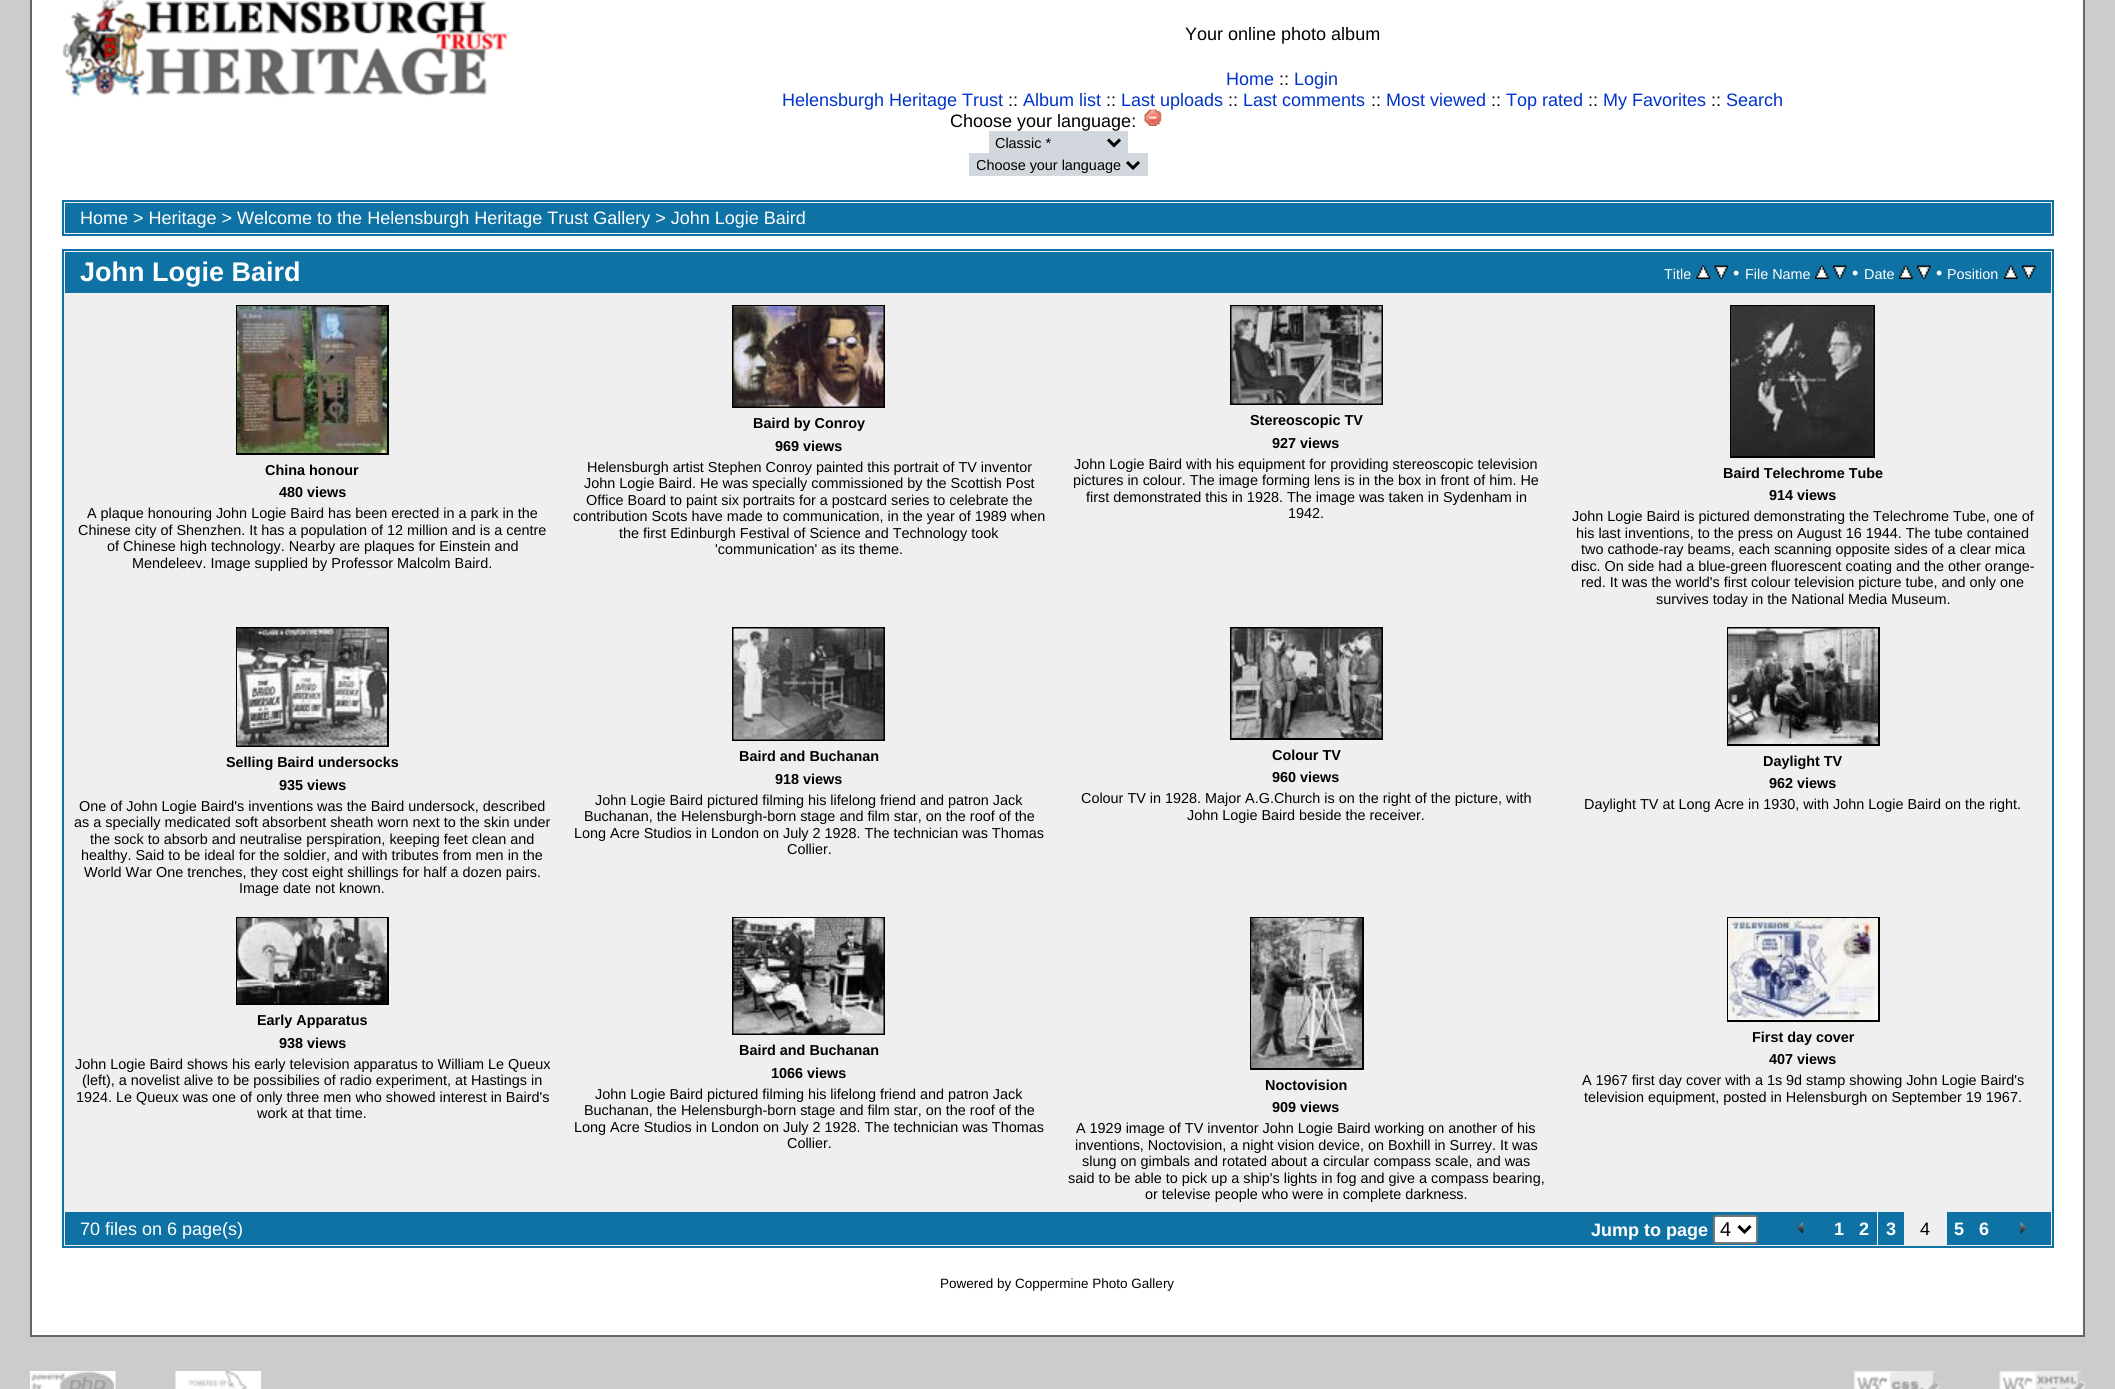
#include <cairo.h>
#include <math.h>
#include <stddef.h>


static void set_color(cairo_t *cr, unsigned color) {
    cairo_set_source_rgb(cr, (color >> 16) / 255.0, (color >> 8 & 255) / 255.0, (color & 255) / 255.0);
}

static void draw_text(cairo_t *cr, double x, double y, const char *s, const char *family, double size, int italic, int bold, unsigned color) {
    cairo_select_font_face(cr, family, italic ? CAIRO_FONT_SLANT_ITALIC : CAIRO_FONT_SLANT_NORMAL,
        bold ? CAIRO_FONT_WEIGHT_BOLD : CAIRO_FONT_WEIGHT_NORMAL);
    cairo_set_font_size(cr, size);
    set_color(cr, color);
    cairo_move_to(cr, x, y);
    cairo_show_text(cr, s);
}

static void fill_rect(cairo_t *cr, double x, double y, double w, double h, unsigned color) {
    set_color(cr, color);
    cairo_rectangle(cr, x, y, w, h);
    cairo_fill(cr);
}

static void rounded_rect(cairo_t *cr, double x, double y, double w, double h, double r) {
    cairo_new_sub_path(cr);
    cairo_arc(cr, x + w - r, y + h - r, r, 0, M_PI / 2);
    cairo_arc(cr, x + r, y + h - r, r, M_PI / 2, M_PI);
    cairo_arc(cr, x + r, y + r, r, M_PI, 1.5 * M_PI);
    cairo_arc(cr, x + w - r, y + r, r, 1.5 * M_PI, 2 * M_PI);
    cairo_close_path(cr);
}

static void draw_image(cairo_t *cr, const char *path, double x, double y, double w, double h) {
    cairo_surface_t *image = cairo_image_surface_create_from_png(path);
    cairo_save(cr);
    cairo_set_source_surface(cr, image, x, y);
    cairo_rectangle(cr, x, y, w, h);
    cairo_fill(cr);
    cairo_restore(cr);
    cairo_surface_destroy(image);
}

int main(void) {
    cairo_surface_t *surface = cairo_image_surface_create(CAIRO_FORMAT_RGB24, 2115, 1389);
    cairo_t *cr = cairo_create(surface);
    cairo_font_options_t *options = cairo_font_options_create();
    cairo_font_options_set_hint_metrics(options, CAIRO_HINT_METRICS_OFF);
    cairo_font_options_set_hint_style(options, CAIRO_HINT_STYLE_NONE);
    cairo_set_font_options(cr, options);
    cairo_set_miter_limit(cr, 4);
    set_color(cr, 0xCCCCCC);
    cairo_paint(cr);
    set_color(cr, 0xFFFFFF);
    cairo_rectangle(cr, 31, -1, 2053, 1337);
    cairo_fill_preserve(cr);
    set_color(cr, 0x666666);
    cairo_stroke(cr);
    draw_image(cr, "assets/img1.png", 62, 0, 446, 97);
    draw_text(cr, 1185, 40, "Your online photo album", "Liberation Sans", 18, 0, 0, 0x000000);
    draw_text(cr, 1226, 85, "Home", "Liberation Sans", 18, 0, 0, 0x0033CC);
    draw_text(cr, 1279, 85, "::", "Liberation Sans", 18, 0, 0, 0x000000);
    draw_text(cr, 1294, 85, "Login", "Liberation Sans", 18, 0, 0, 0x0033CC);
    draw_text(cr, 782, 106, "Helensburgh Heritage Trust", "Liberation Sans", 18, 0, 0, 0x0033CC);
    draw_text(cr, 1008, 106, "::", "Liberation Sans", 18, 0, 0, 0x000000);
    draw_text(cr, 1023, 106, "Album list", "Liberation Sans", 18, 0, 0, 0x0033CC);
    draw_text(cr, 1106, 106, "::", "Liberation Sans", 18, 0, 0, 0x000000);
    draw_text(cr, 1121, 106, "Last uploads", "Liberation Sans", 18, 0, 0, 0x0033CC);
    draw_text(cr, 1228, 106, "::", "Liberation Sans", 18, 0, 0, 0x000000);
    draw_text(cr, 1243, 106, "Last comments", "Liberation Sans", 18, 0, 0, 0x0033CC);
    draw_text(cr, 1371, 106, "::", "Liberation Sans", 18, 0, 0, 0x000000);
    draw_text(cr, 1386, 106, "Most viewed", "Liberation Sans", 18, 0, 0, 0x0033CC);
    draw_text(cr, 1491, 106, "::", "Liberation Sans", 18, 0, 0, 0x000000);
    draw_text(cr, 1506, 106, "Top rated", "Liberation Sans", 18, 0, 0, 0x0033CC);
    draw_text(cr, 1588, 106, "::", "Liberation Sans", 18, 0, 0, 0x000000);
    draw_text(cr, 1603, 106, "My Favorites", "Liberation Sans", 18, 0, 0, 0x0033CC);
    draw_text(cr, 1711, 106, "::", "Liberation Sans", 18, 0, 0, 0x000000);
    draw_text(cr, 1726, 106, "Search", "Liberation Sans", 18, 0, 0, 0x0033CC);
    draw_text(cr, 950, 127, "Choose your language:", "Liberation Sans", 18, 0, 0, 0x000000);
    draw_image(cr, "assets/img2.png", 1144, 109, 18, 17);
    fill_rect(cr, 989, 131, 139, 22, 0xD1D7DC);
    cairo_new_path(cr);
    cairo_move_to(cr, 1108, 139.5);
    cairo_line_to(cr, 1114, 145.5);
    cairo_line_to(cr, 1120, 139.5);
    set_color(cr, 0x000000);
    cairo_set_line_width(cr, 3);
    cairo_stroke(cr);
    draw_text(cr, 995, 148, "Classic *", "Liberation Sans", 14.4, 0, 0, 0x000000);
    fill_rect(cr, 969, 153, 179, 23, 0xD1D7DC);
    cairo_new_path(cr);
    cairo_move_to(cr, 1127, 162);
    cairo_line_to(cr, 1133, 168);
    cairo_line_to(cr, 1139, 162);
    set_color(cr, 0x000000);
    cairo_stroke(cr);
    cairo_save(cr);
    cairo_rectangle(cr, 977, 155, 145, 19);
    cairo_clip(cr);
    draw_text(cr, 976, 170, "Choose your language", "Liberation Sans", 14.4, 0, 0, 0x000000);
    cairo_restore(cr);
    set_color(cr, 0xEFEFEF);
    cairo_rectangle(cr, 63, 201, 1990, 34);
    cairo_fill_preserve(cr);
    set_color(cr, 0x0E72A4);
    cairo_set_line_width(cr, 2);
    cairo_stroke(cr);
    fill_rect(cr, 65, 203, 1986, 30, 0x0E72A4);
    draw_text(cr, 80, 224, "Home > Heritage > Welcome to the Helensburgh Heritage Trust Gallery > John Logie Baird", "Liberation Sans", 18, 0, 0, 0xFFFFFF);
    set_color(cr, 0xEFEFEF);
    cairo_rectangle(cr, 63, 250, 1990, 997);
    cairo_fill_preserve(cr);
    set_color(cr, 0x0E72A4);
    cairo_stroke(cr);
    fill_rect(cr, 65, 252, 1986, 41, 0x0E72A4);
    draw_text(cr, 80, 281, "John Logie Baird", "Liberation Sans", 27, 0, 1, 0xFFFFFF);
    draw_text(cr, 1664, 279, "Title", "Liberation Sans", 14.4, 0, 0, 0xFFFFFF);
    draw_image(cr, "assets/img3.png", 1696, 265, 14, 14);
    draw_image(cr, "assets/img4.png", 1714, 265, 14, 14);
    draw_text(cr, 1733, 279, "•", "Liberation Sans", 18, 0, 0, 0xFFFFFF);
    draw_text(cr, 1745, 279, "File Name", "Liberation Sans", 14.4, 0, 0, 0xFFFFFF);
    draw_image(cr, "assets/img5.png", 1815, 265, 14, 14);
    draw_image(cr, "assets/img6.png", 1833, 265, 14, 14);
    draw_text(cr, 1852, 279, "•", "Liberation Sans", 18, 0, 0, 0xFFFFFF);
    draw_text(cr, 1864, 279, "Date", "Liberation Sans", 14.4, 0, 0, 0xFFFFFF);
    draw_image(cr, "assets/img5.png", 1899, 265, 14, 14);
    draw_image(cr, "assets/img6.png", 1917, 265, 14, 14);
    draw_text(cr, 1936, 279, "•", "Liberation Sans", 18, 0, 0, 0xFFFFFF);
    draw_text(cr, 1947, 279, "Position", "Liberation Sans", 14.4, 0, 0, 0xFFFFFF);
    draw_image(cr, "assets/img5.png", 2004, 265, 14, 14);
    draw_image(cr, "assets/img6.png", 2022, 265, 14, 14);
    cairo_rectangle(cr, 237, 306, 151, 148);
    set_color(cr, 0x000000);
    cairo_stroke(cr);
    draw_image(cr, "assets/img7.png", 237, 306, 150, 147);
    draw_text(cr, 265, 475, "China honour", "Liberation Sans", 14.4, 0, 1, 0x000000);
    draw_text(cr, 279, 497, "480 views", "Liberation Sans", 14.4, 0, 1, 0x000000);
    draw_text(cr, 87, 518, "A plaque honouring John Logie Baird has been erected in a park in the", "Liberation Sans", 14.4, 0, 0, 0x000000);
    draw_text(cr, 78, 535, "Chinese city of Shenzhen. It has a population of 12 million and is a centre", "Liberation Sans", 14.4, 0, 0, 0x000000);
    draw_text(cr, 107, 551, "of Chinese high technology. Nearby are plaques for Einstein and", "Liberation Sans", 14.4, 0, 0, 0x000000);
    draw_text(cr, 132, 568, "Mendeleev. Image supplied by Professor Malcolm Baird.", "Liberation Sans", 14.4, 0, 0, 0x000000);
    cairo_rectangle(cr, 733, 306, 151, 101);
    cairo_stroke(cr);
    draw_image(cr, "assets/img8.png", 733, 306, 151, 101);
    draw_text(cr, 753, 428, "Baird by Conroy", "Liberation Sans", 14.4, 0, 1, 0x000000);
    draw_text(cr, 775, 451, "969 views", "Liberation Sans", 14.4, 0, 1, 0x000000);
    draw_text(cr, 587, 472, "Helensburgh artist Stephen Conroy painted this portrait of TV inventor", "Liberation Sans", 14.4, 0, 0, 0x000000);
    draw_text(cr, 584, 488, "John Logie Baird. He was specially commissioned by the Scottish Post", "Liberation Sans", 14.4, 0, 0, 0x000000);
    draw_text(cr, 586, 505, "Office Board to paint six portraits for a postcard series to celebrate the", "Liberation Sans", 14.4, 0, 0, 0x000000);
    draw_text(cr, 573, 521, "contribution Scots have made to communication, in the year of 1989 when", "Liberation Sans", 14.4, 0, 0, 0x000000);
    draw_text(cr, 619, 538, "the first Edinburgh Festival of Science and Technology took", "Liberation Sans", 14.4, 0, 0, 0x000000);
    draw_text(cr, 715, 554, "'communication' as its theme.", "Liberation Sans", 14.4, 0, 0, 0x000000);
    cairo_rectangle(cr, 1231, 306, 151, 98);
    cairo_stroke(cr);
    draw_image(cr, "assets/img9.png", 1231, 306, 151, 98);
    draw_text(cr, 1250, 425, "Stereoscopic TV", "Liberation Sans", 14.4, 0, 1, 0x000000);
    draw_text(cr, 1272, 448, "927 views", "Liberation Sans", 14.4, 0, 1, 0x000000);
    draw_text(cr, 1074, 469, "John Logie Baird with his equipment for providing stereoscopic television", "Liberation Sans", 14.4, 0, 0, 0x000000);
    draw_text(cr, 1073, 485, "pictures in colour. The image forming lens is in the box in front of him. He", "Liberation Sans", 14.4, 0, 0, 0x000000);
    draw_text(cr, 1086, 502, "first demonstrated this in 1928. The image was taken in Sydenham in", "Liberation Sans", 14.4, 0, 0, 0x000000);
    draw_text(cr, 1288, 518, "1942.", "Liberation Sans", 14.4, 0, 0, 0x000000);
    cairo_rectangle(cr, 1731, 306, 143, 151);
    cairo_stroke(cr);
    draw_image(cr, "assets/img10.png", 1731, 306, 143, 150);
    draw_text(cr, 1723, 478, "Baird Telechrome Tube", "Liberation Sans", 14.4, 0, 1, 0x000000);
    draw_text(cr, 1769, 500, "914 views", "Liberation Sans", 14.4, 0, 1, 0x000000);
    draw_text(cr, 1572, 521, "John Logie Baird is pictured demonstrating the Telechrome Tube, one of", "Liberation Sans", 14.4, 0, 0, 0x000000);
    draw_text(cr, 1576, 538, "his last inventions, to the press on August 16 1944. The tube contained", "Liberation Sans", 14.4, 0, 0, 0x000000);
    draw_text(cr, 1581, 554, "two cathode-ray beams, each scanning opposite sides of a clear mica", "Liberation Sans", 14.4, 0, 0, 0x000000);
    draw_text(cr, 1571, 571, "disc. On side had a blue-green fluorescent coating and the other orange-", "Liberation Sans", 14.4, 0, 0, 0x000000);
    draw_text(cr, 1581, 587, "red. It was the world's first colour television picture tube, and only one", "Liberation Sans", 14.4, 0, 0, 0x000000);
    draw_text(cr, 1656, 604, "survives today in the National Media Museum.", "Liberation Sans", 14.4, 0, 0, 0x000000);
    cairo_rectangle(cr, 237, 628, 151, 118);
    cairo_stroke(cr);
    draw_image(cr, "assets/img11.png", 237, 628, 150, 118);
    draw_text(cr, 226, 767, "Selling Baird undersocks", "Liberation Sans", 14.4, 0, 1, 0x000000);
    draw_text(cr, 279, 790, "935 views", "Liberation Sans", 14.4, 0, 1, 0x000000);
    draw_text(cr, 79, 811, "One of John Logie Baird's inventions was the Baird undersock, described", "Liberation Sans", 14.4, 0, 0, 0x000000);
    draw_text(cr, 74, 827, "as a specially medicated soft absorbent sheath worn next to the skin under", "Liberation Sans", 14.4, 0, 0, 0x000000);
    draw_text(cr, 90, 844, "the sock to absorb and neutralise perspiration, keeping feet clean and", "Liberation Sans", 14.4, 0, 0, 0x000000);
    draw_text(cr, 81, 860, "healthy. Said to be ideal for the soldier, and with tributes from men in the", "Liberation Sans", 14.4, 0, 0, 0x000000);
    draw_text(cr, 84, 877, "World War One trenches, they cost eight shillings for half a dozen pairs.", "Liberation Sans", 14.4, 0, 0, 0x000000);
    draw_text(cr, 239, 893, "Image date not known.", "Liberation Sans", 14.4, 0, 0, 0x000000);
    cairo_rectangle(cr, 733, 628, 151, 112);
    cairo_stroke(cr);
    draw_image(cr, "assets/img12.png", 733, 628, 151, 112);
    draw_text(cr, 739, 761, "Baird and Buchanan", "Liberation Sans", 14.4, 0, 1, 0x000000);
    draw_text(cr, 775, 784, "918 views", "Liberation Sans", 14.4, 0, 1, 0x000000);
    draw_text(cr, 595, 805, "John Logie Baird pictured filming his lifelong friend and patron Jack", "Liberation Sans", 14.4, 0, 0, 0x000000);
    draw_text(cr, 584, 821, "Buchanan, the Helensburgh-born stage and film star, on the roof of the", "Liberation Sans", 14.4, 0, 0, 0x000000);
    draw_text(cr, 574, 838, "Long Acre Studios in London on July 2 1928. The technician was Thomas", "Liberation Sans", 14.4, 0, 0, 0x000000);
    draw_text(cr, 787, 854, "Collier.", "Liberation Sans", 14.4, 0, 0, 0x000000);
    cairo_rectangle(cr, 1231, 628, 151, 111);
    cairo_stroke(cr);
    draw_image(cr, "assets/img13.png", 1231, 628, 151, 110);
    draw_text(cr, 1272, 760, "Colour TV", "Liberation Sans", 14.4, 0, 1, 0x000000);
    draw_text(cr, 1272, 782, "960 views", "Liberation Sans", 14.4, 0, 1, 0x000000);
    draw_text(cr, 1081, 803, "Colour TV in 1928. Major A.G.Church is on the right of the picture, with", "Liberation Sans", 14.4, 0, 0, 0x000000);
    draw_text(cr, 1187, 820, "John Logie Baird beside the receiver.", "Liberation Sans", 14.4, 0, 0, 0x000000);
    cairo_rectangle(cr, 1728, 628, 151, 117);
    cairo_stroke(cr);
    draw_image(cr, "assets/img14.png", 1728, 628, 150, 116);
    draw_text(cr, 1763, 766, "Daylight TV", "Liberation Sans", 14.4, 0, 1, 0x000000);
    draw_text(cr, 1769, 788, "962 views", "Liberation Sans", 14.4, 0, 1, 0x000000);
    draw_text(cr, 1584, 809, "Daylight TV at Long Acre in 1930, with John Logie Baird on the right.", "Liberation Sans", 14.4, 0, 0, 0x000000);
    cairo_rectangle(cr, 237, 918, 151, 86);
    cairo_stroke(cr);
    draw_image(cr, "assets/img15.png", 237, 918, 150, 86);
    draw_text(cr, 257, 1025, "Early Apparatus", "Liberation Sans", 14.4, 0, 1, 0x000000);
    draw_text(cr, 279, 1048, "938 views", "Liberation Sans", 14.4, 0, 1, 0x000000);
    draw_text(cr, 75, 1069, "John Logie Baird shows his early television apparatus to William Le Queux", "Liberation Sans", 14.4, 0, 0, 0x000000);
    draw_text(cr, 82, 1085, "(left), a novelist alive to be possibilies of radio experiment, at Hastings in", "Liberation Sans", 14.4, 0, 0, 0x000000);
    draw_text(cr, 76, 1102, "1924. Le Queux was one of only three men who showed interest in Baird's", "Liberation Sans", 14.4, 0, 0, 0x000000);
    draw_text(cr, 257, 1118, "work at that time.", "Liberation Sans", 14.4, 0, 0, 0x000000);
    cairo_rectangle(cr, 733, 918, 151, 116);
    cairo_stroke(cr);
    draw_image(cr, "assets/img16.png", 733, 918, 151, 116);
    draw_text(cr, 739, 1055, "Baird and Buchanan", "Liberation Sans", 14.4, 0, 1, 0x000000);
    draw_text(cr, 771, 1078, "1066 views", "Liberation Sans", 14.4, 0, 1, 0x000000);
    draw_text(cr, 595, 1099, "John Logie Baird pictured filming his lifelong friend and patron Jack", "Liberation Sans", 14.4, 0, 0, 0x000000);
    draw_text(cr, 584, 1115, "Buchanan, the Helensburgh-born stage and film star, on the roof of the", "Liberation Sans", 14.4, 0, 0, 0x000000);
    draw_text(cr, 574, 1132, "Long Acre Studios in London on July 2 1928. The technician was Thomas", "Liberation Sans", 14.4, 0, 0, 0x000000);
    draw_text(cr, 787, 1148, "Collier.", "Liberation Sans", 14.4, 0, 0, 0x000000);
    cairo_rectangle(cr, 1251, 918, 112, 151);
    cairo_stroke(cr);
    draw_image(cr, "assets/img17.png", 1251, 918, 111, 150);
    draw_text(cr, 1265, 1090, "Noctovision", "Liberation Sans", 14.4, 0, 1, 0x000000);
    draw_text(cr, 1272, 1112, "909 views", "Liberation Sans", 14.4, 0, 1, 0x000000);
    draw_text(cr, 1076, 1133, "A 1929 image of TV inventor John Logie Baird working on another of his", "Liberation Sans", 14.4, 0, 0, 0x000000);
    draw_text(cr, 1075, 1150, "inventions, Noctovision, a night vision device, on Boxhill in Surrey. It was", "Liberation Sans", 14.4, 0, 0, 0x000000);
    draw_text(cr, 1082, 1166, "slung on gimbals and rotated about a circular compass scale, and was", "Liberation Sans", 14.4, 0, 0, 0x000000);
    draw_text(cr, 1068, 1183, "said to be able to pick up a ship's lights in fog and give a compass bearing,", "Liberation Sans", 14.4, 0, 0, 0x000000);
    draw_text(cr, 1145, 1199, "or televise people who were in complete darkness.", "Liberation Sans", 14.4, 0, 0, 0x000000);
    cairo_rectangle(cr, 1728, 918, 151, 103);
    cairo_stroke(cr);
    draw_image(cr, "assets/img18.png", 1728, 918, 150, 102);
    draw_text(cr, 1752, 1042, "First day cover", "Liberation Sans", 14.4, 0, 1, 0x000000);
    draw_text(cr, 1769, 1064, "407 views", "Liberation Sans", 14.4, 0, 1, 0x000000);
    draw_text(cr, 1582, 1085, "A 1967 first day cover with a 1s 9d stamp showing John Logie Baird's", "Liberation Sans", 14.4, 0, 0, 0x000000);
    draw_text(cr, 1584, 1102, "television equipment, posted in Helensburgh on September 19 1967.", "Liberation Sans", 14.4, 0, 0, 0x000000);
    fill_rect(cr, 65, 1212, 1812, 33, 0x0E72A4);
    draw_text(cr, 80, 1235, "70 files on 6 page(s)", "Liberation Sans", 18, 0, 0, 0xFFFFFF);
    draw_text(cr, 1591, 1236, "Jump to page", "Liberation Sans", 18, 0, 1, 0xFFFFFF);
    rounded_rect(cr, 1714, 1216, 43, 27, 2);
    cairo_fill_preserve(cr);
    set_color(cr, 0x767676);
    cairo_stroke(cr);
    cairo_new_path(cr);
    cairo_move_to(cr, 1738.5, 1226);
    cairo_line_to(cr, 1744.5, 1232);
    cairo_line_to(cr, 1750.5, 1226);
    set_color(cr, 0x000000);
    cairo_set_line_width(cr, 3);
    cairo_stroke(cr);
    draw_text(cr, 1720, 1236, "4", "Liberation Sans", 20, 0, 0, 0x000000);
    draw_image(cr, "assets/img19.png", 1796, 1222, 8, 12);
    draw_text(cr, 1834, 1235, "1", "Liberation Sans", 18, 0, 1, 0xFFFFFF);
    draw_text(cr, 1859, 1235, "2", "Liberation Sans", 18, 0, 1, 0xFFFFFF);
    fill_rect(cr, 1878, 1212, 26, 33, 0x0E72A4);
    draw_text(cr, 1886, 1235, "3", "Liberation Sans", 18, 0, 1, 0xFFFFFF);
    draw_text(cr, 1920, 1235, "4", "Liberation Sans", 18, 0, 0, 0x000000);
    fill_rect(cr, 1947, 1212, 104, 33, 0x0E72A4);
    draw_text(cr, 1954, 1235, "5", "Liberation Sans", 18, 0, 1, 0xFFFFFF);
    draw_text(cr, 1979, 1235, "6", "Liberation Sans", 18, 0, 1, 0xFFFFFF);
    draw_image(cr, "assets/img20.png", 2020, 1222, 7, 12);
    draw_text(cr, 940, 1288, "Powered by Coppermine Photo Gallery", "Liberation Sans", 13.5, 0, 0, 0x000000);
    draw_image(cr, "assets/img21.png", 30, 1371, 86, 18);
    draw_image(cr, "assets/img22.png", 175, 1371, 86, 18);
    draw_image(cr, "assets/img23.png", 1854, 1371, 86, 18);
    draw_image(cr, "assets/img24.png", 1999, 1371, 86, 18);
    cairo_surface_write_to_png(surface, "output.png");
    cairo_font_options_destroy(options);
    cairo_destroy(cr);
    cairo_surface_destroy(surface);
    return 0;
}
